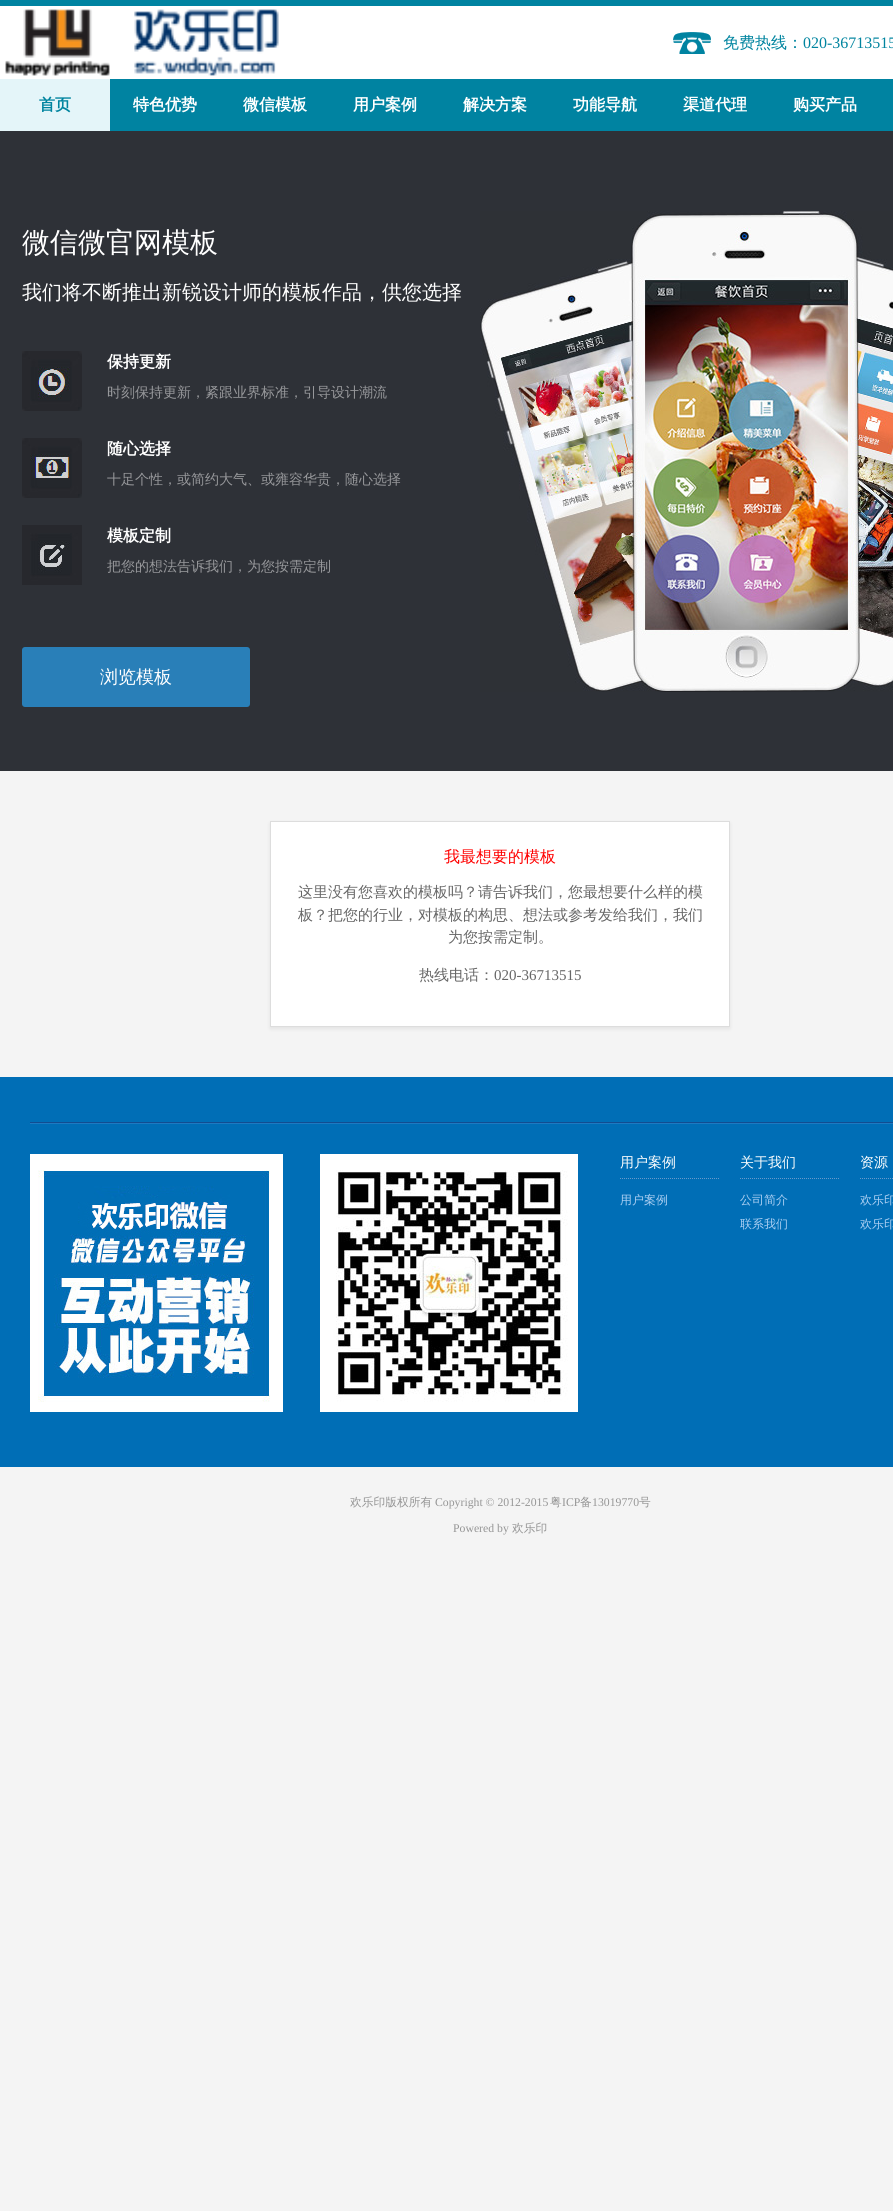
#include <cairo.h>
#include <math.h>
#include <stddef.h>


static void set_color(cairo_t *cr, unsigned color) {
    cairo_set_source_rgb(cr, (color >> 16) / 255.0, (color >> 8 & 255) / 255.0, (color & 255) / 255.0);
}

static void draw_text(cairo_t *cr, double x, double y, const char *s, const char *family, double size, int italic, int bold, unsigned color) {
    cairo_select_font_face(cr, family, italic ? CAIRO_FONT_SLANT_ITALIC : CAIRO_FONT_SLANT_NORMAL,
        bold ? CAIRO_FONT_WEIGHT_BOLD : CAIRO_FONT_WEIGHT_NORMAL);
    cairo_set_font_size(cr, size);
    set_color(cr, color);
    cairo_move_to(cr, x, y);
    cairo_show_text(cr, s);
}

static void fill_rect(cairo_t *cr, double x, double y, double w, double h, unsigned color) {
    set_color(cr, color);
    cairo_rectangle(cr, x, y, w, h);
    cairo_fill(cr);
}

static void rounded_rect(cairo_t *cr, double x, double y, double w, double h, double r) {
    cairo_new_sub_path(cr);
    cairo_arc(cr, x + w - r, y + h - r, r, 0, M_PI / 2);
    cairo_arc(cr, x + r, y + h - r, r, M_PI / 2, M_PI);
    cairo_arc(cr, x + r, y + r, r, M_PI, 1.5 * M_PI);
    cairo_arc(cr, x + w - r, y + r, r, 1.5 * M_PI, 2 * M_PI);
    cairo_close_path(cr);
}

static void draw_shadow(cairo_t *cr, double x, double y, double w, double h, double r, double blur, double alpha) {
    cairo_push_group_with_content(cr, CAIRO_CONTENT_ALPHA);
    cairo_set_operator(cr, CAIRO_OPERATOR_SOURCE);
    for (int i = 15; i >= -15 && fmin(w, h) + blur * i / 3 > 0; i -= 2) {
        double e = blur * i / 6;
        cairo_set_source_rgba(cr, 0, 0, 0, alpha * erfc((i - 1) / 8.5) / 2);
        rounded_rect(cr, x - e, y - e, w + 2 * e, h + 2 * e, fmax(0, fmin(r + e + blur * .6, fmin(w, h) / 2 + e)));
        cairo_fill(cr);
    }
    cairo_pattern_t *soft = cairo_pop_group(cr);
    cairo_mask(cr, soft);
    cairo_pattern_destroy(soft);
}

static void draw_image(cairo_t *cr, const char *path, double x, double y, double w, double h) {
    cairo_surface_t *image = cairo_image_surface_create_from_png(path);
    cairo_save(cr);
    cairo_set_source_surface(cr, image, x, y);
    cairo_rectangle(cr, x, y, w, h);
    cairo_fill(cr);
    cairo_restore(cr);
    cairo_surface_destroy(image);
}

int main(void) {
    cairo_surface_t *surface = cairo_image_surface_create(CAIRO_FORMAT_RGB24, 893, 2211);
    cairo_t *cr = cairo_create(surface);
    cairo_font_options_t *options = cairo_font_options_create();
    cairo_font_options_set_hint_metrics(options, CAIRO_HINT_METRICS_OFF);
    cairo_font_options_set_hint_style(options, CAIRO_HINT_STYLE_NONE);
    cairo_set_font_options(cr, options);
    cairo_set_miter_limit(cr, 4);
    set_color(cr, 0xF4F4F4);
    cairo_paint(cr);
    fill_rect(cr, 0, 6, 893, 73, 0xFFFFFF);
    fill_rect(cr, 0, 0, 893, 6, 0x0083A1);
    draw_image(cr, "assets/img1.png", 5, 9, 274, 67);
    draw_image(cr, "assets/img2.png", 673, 32, 38, 22);
    draw_text(cr, 723, 48, "免费热线：", "WenQuanYi Zen Hei Medium", 16, 0, 0, 0x00849F);
    draw_text(cr, 803, 48, "020-36713515", "Liberation Serif", 16, 0, 0, 0x00849F);
    fill_rect(cr, 110, 79, 783, 52, 0x0083A1);
    fill_rect(cr, 0, 79, 110, 52, 0xE4F5F9);
    draw_text(cr, 39, 110, "首页", "WenQuanYi Zen Hei", 16, 0, 1, 0x00849F);
    draw_text(cr, 133, 110, "特色优势", "WenQuanYi Zen Hei", 16, 0, 1, 0xFFFFFF);
    draw_text(cr, 243, 110, "微信模板", "WenQuanYi Zen Hei", 16, 0, 1, 0xFFFFFF);
    draw_text(cr, 353, 110, "用户案例", "WenQuanYi Zen Hei", 16, 0, 1, 0xFFFFFF);
    draw_text(cr, 463, 110, "解决方案", "WenQuanYi Zen Hei", 16, 0, 1, 0xFFFFFF);
    draw_text(cr, 573, 110, "功能导航", "WenQuanYi Zen Hei", 16, 0, 1, 0xFFFFFF);
    draw_text(cr, 683, 110, "渠道代理", "WenQuanYi Zen Hei", 16, 0, 1, 0xFFFFFF);
    draw_text(cr, 793, 110, "购买产品", "WenQuanYi Zen Hei", 16, 0, 1, 0xFFFFFF);
    fill_rect(cr, 0, 131, 893, 640, 0x2E3137);
    draw_text(cr, 22, 252, "微信微官网模板", "WenQuanYi Zen Hei Medium", 28, 0, 0, 0xFFFFFF);
    draw_text(cr, 22, 299, "我们将不断推出新锐设计师的模板作品，供您选择", "WenQuanYi Zen Hei Medium", 20, 0, 0, 0xFFFFFF);
    draw_image(cr, "assets/img3.png", 22, 351, 60, 60);
    draw_text(cr, 107, 367, "保持更新", "WenQuanYi Zen Hei", 16, 0, 1, 0xFFFFFF);
    draw_text(cr, 107, 397, "时刻保持更新，紧跟业界标准，引导设计潮流", "WenQuanYi Zen Hei Medium", 14, 0, 0, 0x97989B);
    draw_image(cr, "assets/img4.png", 22, 438, 60, 60);
    draw_text(cr, 107, 454, "随心选择", "WenQuanYi Zen Hei", 16, 0, 1, 0xFFFFFF);
    draw_text(cr, 107, 484, "十足个性，或简约大气、或雍容华贵，随心选择", "WenQuanYi Zen Hei Medium", 14, 0, 0, 0x97989B);
    draw_image(cr, "assets/img5.png", 22, 525, 60, 60);
    draw_text(cr, 107, 541, "模板定制", "WenQuanYi Zen Hei", 16, 0, 1, 0xFFFFFF);
    draw_text(cr, 107, 571, "把您的想法告诉我们，为您按需定制", "WenQuanYi Zen Hei Medium", 14, 0, 0, 0x97989B);
    set_color(cr, 0x297FB8);
    rounded_rect(cr, 22, 647, 228, 60, 3);
    cairo_fill(cr);
    draw_text(cr, 100, 683, "浏览模板", "WenQuanYi Zen Hei Medium", 18, 0, 0, 0xFFFFFF);
    draw_image(cr, "assets/img6.png", 480, 211, 413, 481);
    set_color(cr, 0x000000);
    draw_shadow(cr, 270, 823, 460, 206, 0, 2, 0.07);
    set_color(cr, 0xFFFFFF);
    cairo_rectangle(cr, 270.5, 821.5, 459, 205);
    cairo_fill_preserve(cr);
    set_color(cr, 0xDDDDDD);
    cairo_set_line_width(cr, 1);
    cairo_stroke(cr);
    draw_text(cr, 444, 862, "我最想要的模板", "WenQuanYi Zen Hei Medium", 16, 0, 0, 0xFF0000);
    draw_text(cr, 298, 897, "这里没有您喜欢的模板吗？请告诉我们，您最想要什么样的模", "WenQuanYi Zen Hei Medium", 15, 0, 0, 0x666666);
    draw_text(cr, 298, 920, "板？把您的行业，对模板的构思、想法或参考发给我们，我们", "WenQuanYi Zen Hei Medium", 15, 0, 0, 0x666666);
    draw_text(cr, 448, 942, "为您按需定制。", "WenQuanYi Zen Hei Medium", 15, 0, 0, 0x666666);
    draw_text(cr, 419, 980, "热线电话：", "WenQuanYi Zen Hei Medium", 15, 0, 0, 0x666666);
    draw_text(cr, 494, 980, "020-36713515", "Liberation Serif", 15, 0, 0, 0x666666);
    fill_rect(cr, 0, 1077, 893, 390, 0x006EB6);
    fill_rect(cr, 30, 1122, 863, 1, 0x124D91);
    fill_rect(cr, 30, 1123, 863, 1, 0x1E7AC1);
    draw_image(cr, "assets/img7.png", 30, 1154, 253, 258);
    draw_image(cr, "assets/img8.png", 320, 1154, 258, 258);
    cairo_new_path(cr);
    cairo_move_to(cr, 620, 1178.5);
    cairo_line_to(cr, 720, 1178.5);
    set_color(cr, 0x699ACB);
    cairo_set_dash(cr, (double[]){1, 1}, 2, 0);
    cairo_stroke(cr);
    draw_text(cr, 620, 1167, "用户案例", "WenQuanYi Zen Hei Medium", 14, 0, 0, 0xFFFFFF);
    draw_text(cr, 620, 1204, "用户案例", "WenQuanYi Zen Hei Medium", 12, 0, 0, 0xACCFF2);
    cairo_new_path(cr);
    cairo_move_to(cr, 740, 1178.5);
    cairo_line_to(cr, 840, 1178.5);
    set_color(cr, 0x699ACB);
    cairo_stroke(cr);
    draw_text(cr, 740, 1167, "关于我们", "WenQuanYi Zen Hei Medium", 14, 0, 0, 0xFFFFFF);
    draw_text(cr, 740, 1204, "公司简介", "WenQuanYi Zen Hei Medium", 12, 0, 0, 0xACCFF2);
    draw_text(cr, 740, 1228, "联系我们", "WenQuanYi Zen Hei Medium", 12, 0, 0, 0xACCFF2);
    cairo_new_path(cr);
    cairo_move_to(cr, 860, 1178.5);
    cairo_line_to(cr, 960, 1178.5);
    set_color(cr, 0x699ACB);
    cairo_stroke(cr);
    draw_text(cr, 860, 1167, "资源", "WenQuanYi Zen Hei Medium", 14, 0, 0, 0xFFFFFF);
    draw_text(cr, 860, 1204, "欢乐印", "WenQuanYi Zen Hei Medium", 12, 0, 0, 0xACCFF2);
    draw_text(cr, 860, 1228, "欢乐印", "WenQuanYi Zen Hei Medium", 12, 0, 0, 0xACCFF2);
    draw_text(cr, 350, 1506, "欢乐印版权所有", "WenQuanYi Zen Hei Medium", 11.75, 0, 0, 0x959595);
    draw_text(cr, 435, 1506, "Copyright © 2012-2015", "Liberation Serif", 11.75, 0, 0, 0x959595);
    draw_text(cr, 550, 1506, "粤", "WenQuanYi Zen Hei Medium", 11.75, 0, 0, 0x959595);
    draw_text(cr, 562, 1506, "ICP", "Liberation Serif", 11.75, 0, 0, 0x959595);
    draw_text(cr, 580, 1506, "备", "WenQuanYi Zen Hei Medium", 11.75, 0, 0, 0x959595);
    draw_text(cr, 592, 1506, "13019770", "Liberation Serif", 11.75, 0, 0, 0x959595);
    draw_text(cr, 639, 1506, "号", "WenQuanYi Zen Hei Medium", 11.75, 0, 0, 0x959595);
    draw_text(cr, 453, 1532, "Powered by", "Liberation Serif", 11.75, 0, 0, 0x959595);
    draw_text(cr, 512, 1532, "欢乐印", "WenQuanYi Zen Hei Medium", 11.75, 0, 0, 0x959595);
    cairo_surface_write_to_png(surface, "output.png");
    cairo_font_options_destroy(options);
    cairo_destroy(cr);
    cairo_surface_destroy(surface);
    return 0;
}
